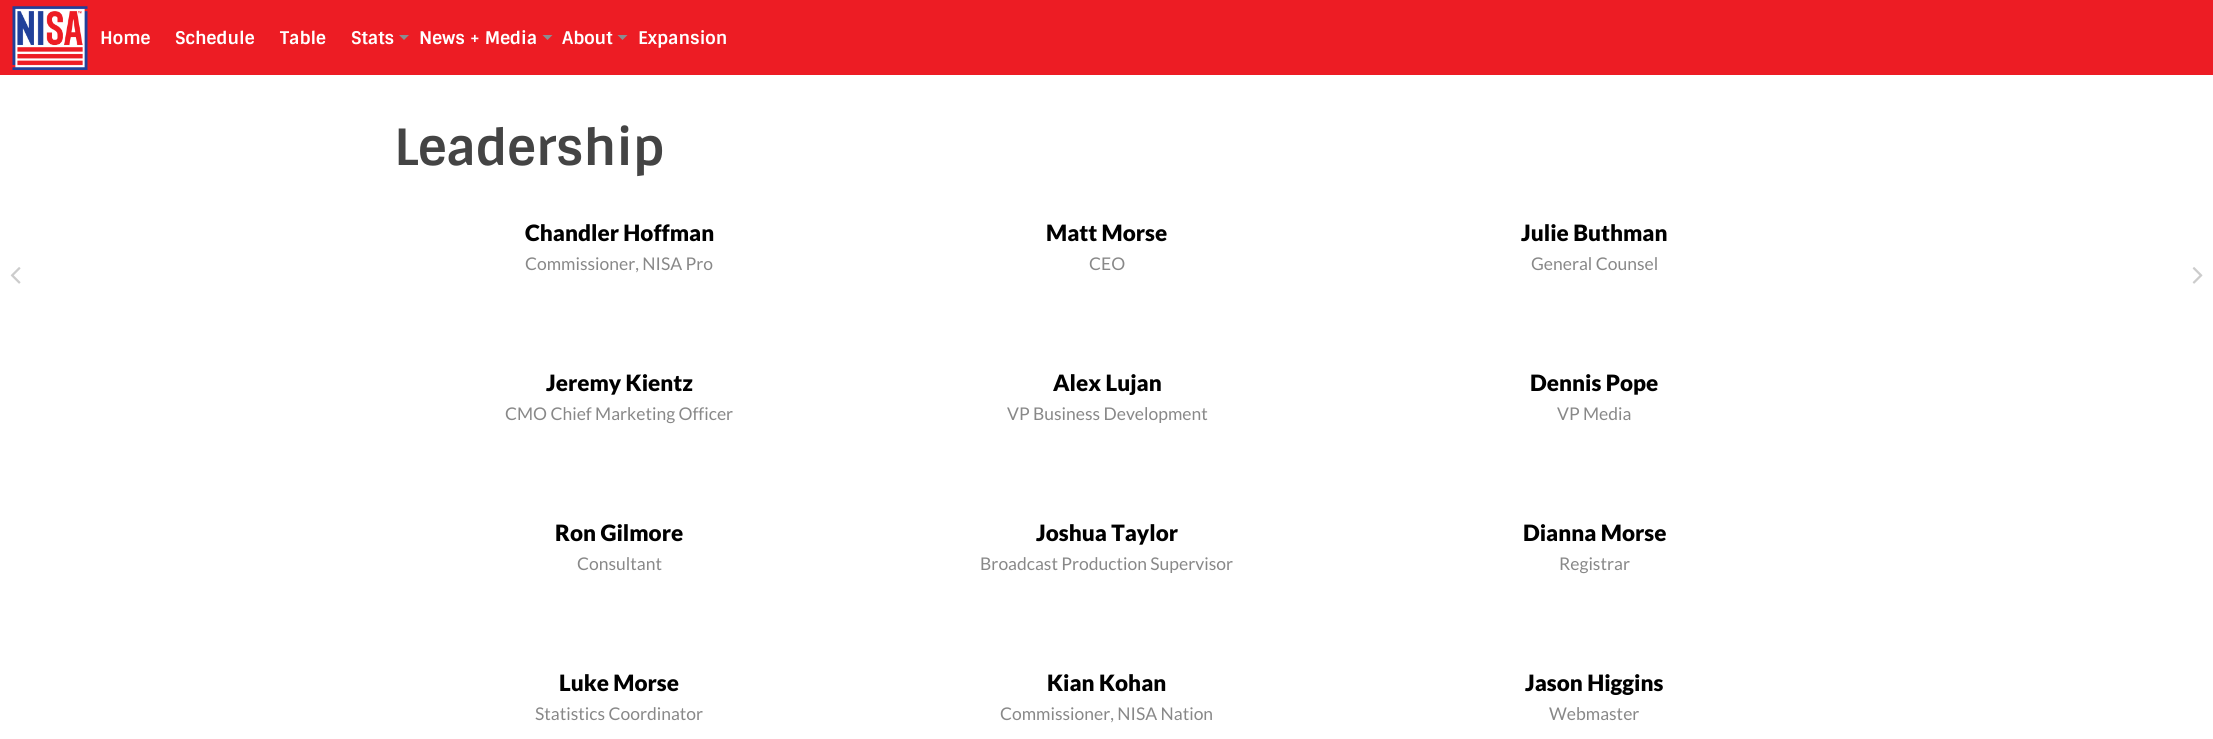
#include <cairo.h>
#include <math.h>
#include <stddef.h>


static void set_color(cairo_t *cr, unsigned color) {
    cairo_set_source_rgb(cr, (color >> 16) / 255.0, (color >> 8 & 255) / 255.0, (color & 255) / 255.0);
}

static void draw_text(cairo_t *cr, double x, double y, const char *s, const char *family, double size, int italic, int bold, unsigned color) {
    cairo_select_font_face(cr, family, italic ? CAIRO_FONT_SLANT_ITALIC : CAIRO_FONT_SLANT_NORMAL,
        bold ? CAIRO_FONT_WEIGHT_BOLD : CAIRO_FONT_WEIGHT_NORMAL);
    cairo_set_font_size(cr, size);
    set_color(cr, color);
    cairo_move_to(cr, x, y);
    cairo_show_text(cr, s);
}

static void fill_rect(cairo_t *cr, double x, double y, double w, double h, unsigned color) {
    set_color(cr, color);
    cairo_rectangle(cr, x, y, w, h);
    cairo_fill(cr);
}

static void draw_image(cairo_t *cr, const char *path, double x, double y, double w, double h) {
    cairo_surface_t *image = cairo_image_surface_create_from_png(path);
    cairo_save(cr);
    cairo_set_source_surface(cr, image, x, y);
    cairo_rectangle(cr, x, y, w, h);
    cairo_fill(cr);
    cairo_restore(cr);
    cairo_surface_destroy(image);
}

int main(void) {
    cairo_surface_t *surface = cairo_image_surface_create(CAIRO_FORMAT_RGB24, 2213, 739);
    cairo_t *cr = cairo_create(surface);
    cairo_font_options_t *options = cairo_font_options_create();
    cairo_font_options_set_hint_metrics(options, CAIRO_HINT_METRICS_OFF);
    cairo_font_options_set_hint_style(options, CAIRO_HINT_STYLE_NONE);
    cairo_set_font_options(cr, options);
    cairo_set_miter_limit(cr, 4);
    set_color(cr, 0xFFFFFF);
    cairo_paint(cr);
    fill_rect(cr, 0, 0, 2213, 75, 0xED1C24);
    draw_image(cr, "assets/img1.png", 12, 6, 76, 64);
    draw_text(cr, 100, 44, "Home", "Sintony", 17.5, 0, 1, 0xFFFFFF);
    draw_text(cr, 175, 44, "Schedule", "Sintony", 17.5, 0, 1, 0xFFFFFF);
    draw_text(cr, 280, 44, "Table", "Sintony", 17.5, 0, 1, 0xFFFFFF);
    draw_text(cr, 351, 44, "Stats", "Sintony", 17.5, 0, 1, 0xFFFFFF);
    set_color(cr, 0x898D91);
    cairo_new_path(cr);
    cairo_move_to(cr, 399, 35);
    cairo_line_to(cr, 409, 35);
    cairo_line_to(cr, 404, 40);
    cairo_close_path(cr);
    cairo_fill(cr);
    draw_text(cr, 419, 44, "News + Media", "Sintony", 17.5, 0, 1, 0xFFFFFF);
    set_color(cr, 0x898D91);
    cairo_new_path(cr);
    cairo_move_to(cr, 542.5, 35);
    cairo_line_to(cr, 552.5, 35);
    cairo_line_to(cr, 547.5, 40);
    cairo_close_path(cr);
    cairo_fill(cr);
    draw_text(cr, 562, 44, "About", "Sintony", 17.5, 0, 1, 0xFFFFFF);
    set_color(cr, 0x898D91);
    cairo_new_path(cr);
    cairo_move_to(cr, 617.5, 35);
    cairo_line_to(cr, 627.5, 35);
    cairo_line_to(cr, 622.5, 40);
    cairo_close_path(cr);
    cairo_fill(cr);
    draw_text(cr, 638, 44, "Expansion", "Sintony", 17.5, 0, 1, 0xFFFFFF);
    draw_text(cr, 394, 165, "Leadership", "Sintony", 50, 0, 1, 0x444444);
    draw_text(cr, 525, 241, "Chandler Hoffman", "Lato Black", 22.5, 0, 0, 0x000000);
    draw_text(cr, 525, 270, "Commissioner, NISA Pro", "Lato", 17.5, 0, 0, 0x888888);
    draw_text(cr, 1046, 241, "Matt Morse", "Lato Black", 22.5, 0, 0, 0x000000);
    draw_text(cr, 1089, 270, "CEO", "Lato", 17.5, 0, 0, 0x888888);
    draw_text(cr, 1521, 241, "Julie Buthman", "Lato Black", 22.5, 0, 0, 0x000000);
    draw_text(cr, 1531, 270, "General Counsel", "Lato", 17.5, 0, 0, 0x888888);
    draw_text(cr, 546, 391, "Jeremy Kientz", "Lato Black", 22.5, 0, 0, 0x000000);
    draw_text(cr, 505, 420, "CMO Chief Marketing Officer", "Lato", 17.5, 0, 0, 0x888888);
    draw_text(cr, 1053, 391, "Alex Lujan", "Lato Black", 22.5, 0, 0, 0x000000);
    draw_text(cr, 1007, 420, "VP Business Development", "Lato", 17.5, 0, 0, 0x888888);
    draw_text(cr, 1530, 391, "Dennis Pope", "Lato Black", 22.5, 0, 0, 0x000000);
    draw_text(cr, 1557, 420, "VP Media", "Lato", 17.5, 0, 0, 0x888888);
    draw_text(cr, 555, 541, "Ron Gilmore", "Lato Black", 22.5, 0, 0, 0x000000);
    draw_text(cr, 577, 570, "Consultant", "Lato", 17.5, 0, 0, 0x888888);
    draw_text(cr, 1036, 541, "Joshua Taylor", "Lato Black", 22.5, 0, 0, 0x000000);
    draw_text(cr, 980, 570, "Broadcast Production Supervisor", "Lato", 17.5, 0, 0, 0x888888);
    draw_text(cr, 1523, 541, "Dianna Morse", "Lato Black", 22.5, 0, 0, 0x000000);
    draw_text(cr, 1559, 570, "Registrar", "Lato", 17.5, 0, 0, 0x888888);
    draw_text(cr, 559, 691, "Luke Morse", "Lato Black", 22.5, 0, 0, 0x000000);
    draw_text(cr, 535, 720, "Statistics Coordinator", "Lato", 17.5, 0, 0, 0x888888);
    draw_text(cr, 1047, 691, "Kian Kohan", "Lato Black", 22.5, 0, 0, 0x000000);
    draw_text(cr, 1000, 720, "Commissioner, NISA Nation", "Lato", 17.5, 0, 0, 0x888888);
    draw_text(cr, 1525, 691, "Jason Higgins", "Lato Black", 22.5, 0, 0, 0x000000);
    draw_text(cr, 1549, 720, "Webmaster", "Lato", 17.5, 0, 0, 0x888888);
    draw_image(cr, "assets/img2.png", 10, 267, 11, 17);
    draw_image(cr, "assets/img3.png", 2192, 267, 11, 17);
    cairo_surface_write_to_png(surface, "output.png");
    cairo_font_options_destroy(options);
    cairo_destroy(cr);
    cairo_surface_destroy(surface);
    return 0;
}
